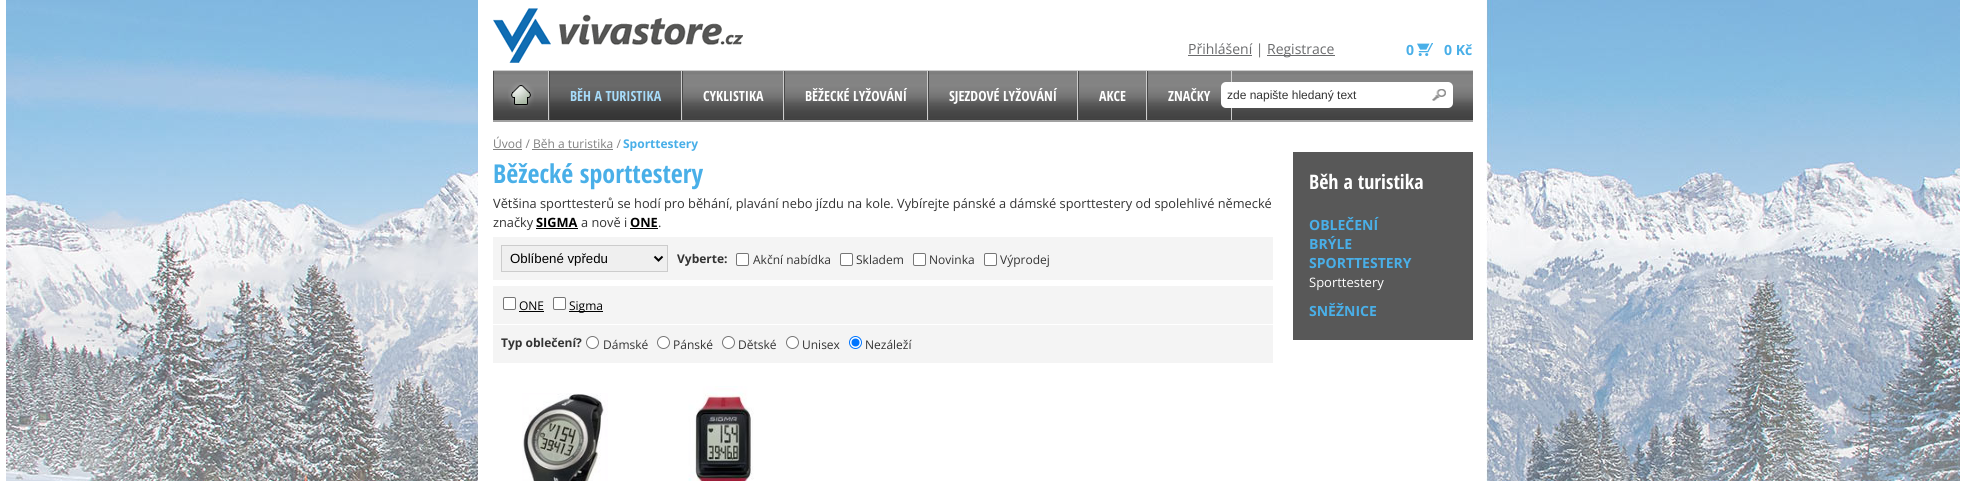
#include <cairo.h>
#include <math.h>
#include <stddef.h>


static void set_color(cairo_t *cr, unsigned color) {
    cairo_set_source_rgb(cr, (color >> 16) / 255.0, (color >> 8 & 255) / 255.0, (color & 255) / 255.0);
}

static void draw_text(cairo_t *cr, double x, double y, const char *s, const char *family, double size, int italic, int bold, unsigned color) {
    cairo_select_font_face(cr, family, italic ? CAIRO_FONT_SLANT_ITALIC : CAIRO_FONT_SLANT_NORMAL,
        bold ? CAIRO_FONT_WEIGHT_BOLD : CAIRO_FONT_WEIGHT_NORMAL);
    cairo_set_font_size(cr, size);
    set_color(cr, color);
    cairo_move_to(cr, x, y);
    cairo_show_text(cr, s);
}

static void fill_rect(cairo_t *cr, double x, double y, double w, double h, unsigned color) {
    set_color(cr, color);
    cairo_rectangle(cr, x, y, w, h);
    cairo_fill(cr);
}

static void rounded_rect(cairo_t *cr, double x, double y, double w, double h, double r) {
    cairo_new_sub_path(cr);
    cairo_arc(cr, x + w - r, y + h - r, r, 0, M_PI / 2);
    cairo_arc(cr, x + r, y + h - r, r, M_PI / 2, M_PI);
    cairo_arc(cr, x + r, y + r, r, M_PI, 1.5 * M_PI);
    cairo_arc(cr, x + w - r, y + r, r, 1.5 * M_PI, 2 * M_PI);
    cairo_close_path(cr);
}

static void draw_image(cairo_t *cr, const char *path, double x, double y, double w, double h) {
    cairo_surface_t *image = cairo_image_surface_create_from_png(path);
    cairo_save(cr);
    cairo_set_source_surface(cr, image, x, y);
    cairo_rectangle(cr, x, y, w, h);
    cairo_fill(cr);
    cairo_restore(cr);
    cairo_surface_destroy(image);
}

int main(void) {
    cairo_surface_t *surface = cairo_image_surface_create(CAIRO_FORMAT_RGB24, 1965, 481);
    cairo_t *cr = cairo_create(surface);
    cairo_font_options_t *options = cairo_font_options_create();
    cairo_font_options_set_hint_metrics(options, CAIRO_HINT_METRICS_OFF);
    cairo_font_options_set_hint_style(options, CAIRO_HINT_STYLE_NONE);
    cairo_set_font_options(cr, options);
    cairo_set_miter_limit(cr, 4);
    set_color(cr, 0xFFFFFF);
    cairo_paint(cr);
    draw_image(cr, "assets/img1.png", 6, 0, 1954, 481);
    draw_image(cr, "assets/img2.png", 493, 8, 250, 55);
    fill_rect(cr, 1188, 55, 64, 1, 0x6A6B6D);
    draw_text(cr, 1188, 54, "Přihlášení |", "Open Sans", 14, 0, 0, 0x6A6B6D);
    fill_rect(cr, 1267, 55, 68, 1, 0x6A6B6D);
    draw_text(cr, 1267, 54, "Registrace", "Open Sans", 14, 0, 0, 0x6A6B6D);
    draw_text(cr, 1406, 55, "0", "Open Sans", 14, 0, 1, 0x49AFE8);
    draw_image(cr, "assets/img3.png", 1417, 43, 16, 13);
    draw_text(cr, 1444, 55, "0 Kč", "Open Sans", 14, 0, 1, 0x49AFE8);
    draw_image(cr, "assets/img4.png", 494, 71, 979, 49);
    fill_rect(cr, 493, 70, 980, 1, 0xCCCCCC);
    fill_rect(cr, 493, 120, 980, 2, 0xA1A1A1);
    fill_rect(cr, 548, 71, 1, 49, 0xCDCDCD);
    fill_rect(cr, 493, 71, 1, 49, 0x4B4B4B);
    draw_image(cr, "assets/img5.png", 508, 82, 26, 27);
    fill_rect(cr, 681, 71, 1, 49, 0xCDCDCD);
    fill_rect(cr, 549, 71, 1, 49, 0x4B4B4B);
    cairo_set_source_rgba(cr, 0, 0, 0, 0.2);
    cairo_rectangle(cr, 550, 71, 131, 49);
    cairo_fill(cr);
    draw_text(cr, 570, 101, "BĚH A TURISTIKA", "Open Sans Condensed", 14, 0, 1, 0xA6DBF9);
    fill_rect(cr, 783, 71, 1, 49, 0xCDCDCD);
    fill_rect(cr, 682, 71, 1, 49, 0x4B4B4B);
    draw_text(cr, 703, 101, "CYKLISTIKA", "Open Sans Condensed", 14, 0, 1, 0xFFFFFF);
    fill_rect(cr, 927, 71, 1, 49, 0xCDCDCD);
    fill_rect(cr, 784, 71, 1, 49, 0x4B4B4B);
    draw_text(cr, 805, 101, "BĚŽECKÉ LYŽOVÁNÍ", "Open Sans Condensed", 14, 0, 1, 0xFFFFFF);
    fill_rect(cr, 1077, 71, 1, 49, 0xCDCDCD);
    fill_rect(cr, 928, 71, 1, 49, 0x4B4B4B);
    draw_text(cr, 949, 101, "SJEZDOVÉ LYŽOVÁNÍ", "Open Sans Condensed", 14, 0, 1, 0xFFFFFF);
    fill_rect(cr, 1146, 71, 1, 49, 0xCDCDCD);
    fill_rect(cr, 1078, 71, 1, 49, 0x4B4B4B);
    draw_text(cr, 1099, 101, "AKCE", "Open Sans Condensed", 14, 0, 1, 0xFFFFFF);
    fill_rect(cr, 1231, 71, 1, 49, 0xCDCDCD);
    fill_rect(cr, 1147, 71, 1, 49, 0x4B4B4B);
    draw_text(cr, 1168, 101, "ZNAČKY", "Open Sans Condensed", 14, 0, 1, 0xFFFFFF);
    rounded_rect(cr, 1221, 82, 232, 26, 5);
    cairo_fill(cr);
    draw_text(cr, 1227, 99, "zde napište hledaný text", "Liberation Sans", 12, 0, 0, 0x333333);
    draw_image(cr, "assets/img6.png", 1432, 89, 14, 12);
    draw_text(cr, 493, 148, "Úvod / Běh a turistika /", "Open Sans", 12, 0, 0, 0x818181);
    fill_rect(cr, 493, 149, 29, 1, 0x818181);
    draw_text(cr, 623, 148, "Sporttestery", "Open Sans", 12, 0, 1, 0x49AFE8);
    fill_rect(cr, 532, 149, 81, 1, 0x818181);
    draw_text(cr, 493, 183, "Běžecké sporttestery", "Open Sans Condensed", 26, 0, 1, 0x49AFE8);
    draw_text(cr, 493, 208, "Většina sporttesterů se hodí pro běhání, plavání nebo jízdu na kole. Vybírejte pánské a dámské sporttestery od spolehlivé německé", "Open Sans", 12.8, 0, 0, 0x333333);
    draw_text(cr, 493, 227, "značky", "Open Sans", 12.8, 0, 0, 0x333333);
    draw_text(cr, 536, 227, "SIGMA", "Open Sans", 12.8, 0, 1, 0x000000);
    fill_rect(cr, 536, 228, 42, 1, 0x000000);
    draw_text(cr, 581, 227, "a nově i", "Open Sans", 12.8, 0, 0, 0x333333);
    draw_text(cr, 630, 227, "ONE", "Open Sans", 12.8, 0, 1, 0x000000);
    fill_rect(cr, 630, 228, 28, 1, 0x000000);
    draw_text(cr, 658, 227, ".", "Open Sans", 12.8, 0, 0, 0x333333);
    fill_rect(cr, 493, 237, 780, 43, 0xF4F4F4);
    set_color(cr, 0xEFEFEF);
    cairo_rectangle(cr, 501.5, 245.5, 166, 26);
    cairo_fill_preserve(cr);
    set_color(cr, 0xCCCCCC);
    cairo_set_line_width(cr, 1);
    cairo_stroke(cr);
    cairo_new_path(cr);
    cairo_move_to(cr, 654.5, 256.5);
    cairo_line_to(cr, 658.5, 260.5);
    cairo_line_to(cr, 662.5, 256.5);
    set_color(cr, 0x000000);
    cairo_set_line_width(cr, 2);
    cairo_stroke(cr);
    draw_text(cr, 510, 263, "Oblíbené vpředu", "Liberation Sans", 13.25, 0, 0, 0x000000);
    draw_text(cr, 677, 263, "Vyberte:", "Open Sans", 12, 0, 1, 0x333333);
    set_color(cr, 0xFFFFFF);
    rounded_rect(cr, 736.5, 253.5, 12, 12, 1.5);
    cairo_fill_preserve(cr);
    set_color(cr, 0x767676);
    cairo_set_line_width(cr, 1);
    cairo_stroke(cr);
    draw_text(cr, 753, 264, "Akční nabídka", "Open Sans", 12, 0, 0, 0x333333);
    set_color(cr, 0xFFFFFF);
    rounded_rect(cr, 840.5, 253.5, 12, 12, 1.5);
    cairo_fill_preserve(cr);
    set_color(cr, 0x767676);
    cairo_stroke(cr);
    draw_text(cr, 856, 264, "Skladem", "Open Sans", 12, 0, 0, 0x333333);
    set_color(cr, 0xFFFFFF);
    rounded_rect(cr, 913.5, 253.5, 12, 12, 1.5);
    cairo_fill_preserve(cr);
    set_color(cr, 0x767676);
    cairo_stroke(cr);
    draw_text(cr, 929, 264, "Novinka", "Open Sans", 12, 0, 0, 0x333333);
    set_color(cr, 0xFFFFFF);
    rounded_rect(cr, 984.5, 253.5, 12, 12, 1.5);
    cairo_fill_preserve(cr);
    set_color(cr, 0x767676);
    cairo_stroke(cr);
    draw_text(cr, 1000, 264, "Výprodej", "Open Sans", 12, 0, 0, 0x333333);
    fill_rect(cr, 493, 286, 780, 77, 0xF4F4F4);
    set_color(cr, 0xFFFFFF);
    rounded_rect(cr, 503.5, 297.5, 12, 12, 1.5);
    cairo_fill_preserve(cr);
    set_color(cr, 0x767676);
    cairo_stroke(cr);
    draw_text(cr, 519, 310, "ONE", "Open Sans", 12, 0, 0, 0x000000);
    fill_rect(cr, 519, 311, 25, 1, 0x000000);
    set_color(cr, 0xFFFFFF);
    rounded_rect(cr, 553.5, 297.5, 12, 12, 1.5);
    cairo_fill_preserve(cr);
    set_color(cr, 0x767676);
    cairo_stroke(cr);
    fill_rect(cr, 569, 311, 34, 1, 0x000000);
    draw_text(cr, 569, 310, "Sigma", "Open Sans", 12, 0, 0, 0x000000);
    fill_rect(cr, 493, 324, 780, 1, 0xFFFFFF);
    draw_text(cr, 501, 347, "Typ oblečení?", "Open Sans", 12, 0, 1, 0x333333);
    set_color(cr, 0xFFFFFF);
    cairo_new_path(cr);
    cairo_arc(cr, 592.5, 342.5, 6, 0, 2 * M_PI);
    cairo_fill_preserve(cr);
    set_color(cr, 0x767676);
    cairo_stroke(cr);
    draw_text(cr, 603, 349, "Dámské", "Open Sans", 12, 0, 0, 0x333333);
    set_color(cr, 0xFFFFFF);
    cairo_new_path(cr);
    cairo_arc(cr, 663.5, 342.5, 6, 0, 2 * M_PI);
    cairo_fill_preserve(cr);
    set_color(cr, 0x767676);
    cairo_stroke(cr);
    draw_text(cr, 673, 349, "Pánské", "Open Sans", 12, 0, 0, 0x333333);
    set_color(cr, 0xFFFFFF);
    cairo_new_path(cr);
    cairo_arc(cr, 728.5, 342.5, 6, 0, 2 * M_PI);
    cairo_fill_preserve(cr);
    set_color(cr, 0x767676);
    cairo_stroke(cr);
    draw_text(cr, 738, 349, "Dětské", "Open Sans", 12, 0, 0, 0x333333);
    set_color(cr, 0xFFFFFF);
    cairo_new_path(cr);
    cairo_arc(cr, 792.5, 342.5, 6, 0, 2 * M_PI);
    cairo_fill_preserve(cr);
    set_color(cr, 0x767676);
    cairo_stroke(cr);
    draw_text(cr, 802, 349, "Unisex", "Open Sans", 12, 0, 0, 0x333333);
    set_color(cr, 0xFFFFFF);
    cairo_new_path(cr);
    cairo_arc(cr, 855.5, 342.5, 6, 0, 2 * M_PI);
    cairo_fill_preserve(cr);
    set_color(cr, 0x0075FF);
    cairo_stroke(cr);
    cairo_arc(cr, 855.5, 342.5, 4, 0, 2 * M_PI);
    cairo_fill(cr);
    draw_text(cr, 865, 349, "Nezáleží", "Open Sans", 12, 0, 0, 0x333333);
    draw_image(cr, "assets/img7.png", 522, 393, 86, 88);
    draw_image(cr, "assets/img8.png", 688, 386, 66, 95);
    fill_rect(cr, 1293, 152, 180, 188, 0x585858);
    draw_text(cr, 1309, 189, "Běh a turistika", "Open Sans Condensed", 20, 0, 1, 0xFFFFFF);
    draw_text(cr, 1309, 230, "OBLEČENÍ", "Open Sans", 14, 0, 1, 0x49AFE8);
    draw_text(cr, 1309, 249, "BRÝLE", "Open Sans", 14, 0, 1, 0x49AFE8);
    draw_text(cr, 1309, 268, "SPORTTESTERY", "Open Sans", 14, 0, 1, 0x49AFE8);
    draw_text(cr, 1309, 287, "Sporttestery", "Open Sans", 13, 0, 0, 0xFFFFFF);
    draw_text(cr, 1309, 316, "SNĚŽNICE", "Open Sans", 14, 0, 1, 0x49AFE8);
    cairo_surface_write_to_png(surface, "output.png");
    cairo_font_options_destroy(options);
    cairo_destroy(cr);
    cairo_surface_destroy(surface);
    return 0;
}
